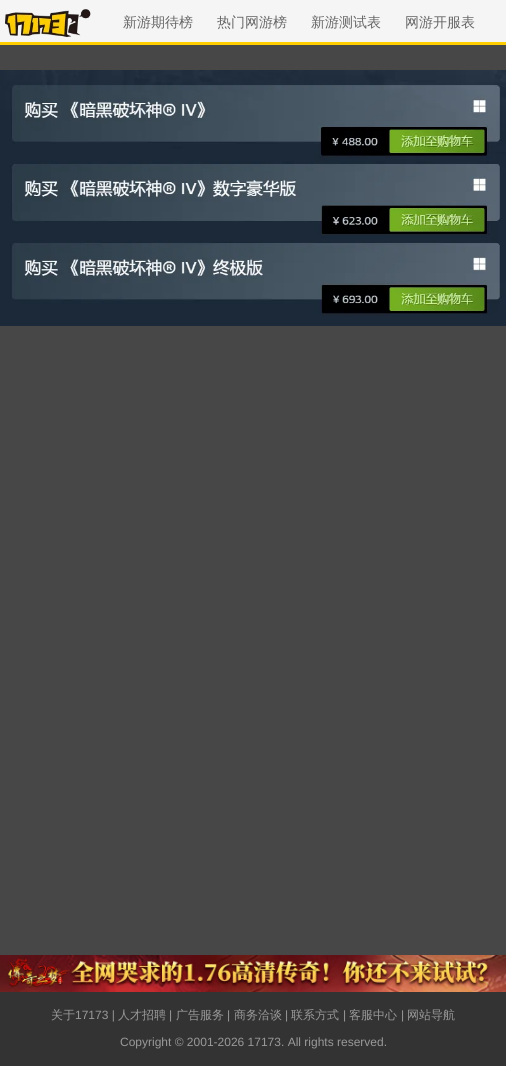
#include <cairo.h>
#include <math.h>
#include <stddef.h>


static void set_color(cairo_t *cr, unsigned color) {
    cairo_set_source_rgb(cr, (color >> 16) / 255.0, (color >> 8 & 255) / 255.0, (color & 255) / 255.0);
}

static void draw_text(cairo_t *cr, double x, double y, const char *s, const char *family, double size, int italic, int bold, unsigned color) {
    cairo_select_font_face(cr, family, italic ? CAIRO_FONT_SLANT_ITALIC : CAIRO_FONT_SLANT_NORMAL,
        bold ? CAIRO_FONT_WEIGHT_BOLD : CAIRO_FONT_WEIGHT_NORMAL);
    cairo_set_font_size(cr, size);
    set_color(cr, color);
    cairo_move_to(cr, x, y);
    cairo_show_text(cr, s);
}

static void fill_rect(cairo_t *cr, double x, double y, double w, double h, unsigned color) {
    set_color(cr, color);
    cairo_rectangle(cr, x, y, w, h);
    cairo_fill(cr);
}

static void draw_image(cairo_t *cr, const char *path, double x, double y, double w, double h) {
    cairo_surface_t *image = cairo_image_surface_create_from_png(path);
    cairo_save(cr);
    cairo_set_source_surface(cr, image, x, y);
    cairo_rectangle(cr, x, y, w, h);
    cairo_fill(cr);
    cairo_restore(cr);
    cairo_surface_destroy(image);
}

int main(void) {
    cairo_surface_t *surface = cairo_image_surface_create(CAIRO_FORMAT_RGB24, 506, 1066);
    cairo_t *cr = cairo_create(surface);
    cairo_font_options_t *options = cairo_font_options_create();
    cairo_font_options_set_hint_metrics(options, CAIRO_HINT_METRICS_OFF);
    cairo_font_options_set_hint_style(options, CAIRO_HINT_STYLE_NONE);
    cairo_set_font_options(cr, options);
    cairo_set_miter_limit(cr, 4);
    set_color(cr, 0x474747);
    cairo_paint(cr);
    fill_rect(cr, 0, 0, 506, 42, 0xF5F5F5);
    fill_rect(cr, 0, 42, 506, 3, 0xFFCD00);
    draw_image(cr, "assets/img1.png", 5, 9, 86, 28);
    draw_text(cr, 123, 27, "新游期待榜", "WenQuanYi Zen Hei Medium", 14, 0, 0, 0x666666);
    draw_text(cr, 217, 27, "热门网游榜", "WenQuanYi Zen Hei Medium", 14, 0, 0, 0x666666);
    draw_text(cr, 311, 27, "新游测试表", "WenQuanYi Zen Hei Medium", 14, 0, 0, 0x666666);
    draw_text(cr, 405, 27, "网游开服表", "WenQuanYi Zen Hei Medium", 14, 0, 0, 0x666666);
    draw_image(cr, "assets/img2.png", 0, 70, 506, 256);
    draw_image(cr, "assets/img3.png", 0, 955, 506, 37);
    fill_rect(cr, 0, 992, 506, 74, 0x333333);
    draw_text(cr, 51, 1019, "关于", "WenQuanYi Zen Hei Medium", 12, 0, 0, 0x999999);
    draw_text(cr, 75, 1019, "17173 |", "Liberation Sans", 12, 0, 0, 0x999999);
    draw_text(cr, 118, 1019, "人才招聘", "WenQuanYi Zen Hei Medium", 12, 0, 0, 0x999999);
    draw_text(cr, 169, 1019, "|", "Liberation Sans", 12, 0, 0, 0x999999);
    draw_text(cr, 176, 1019, "广告服务", "WenQuanYi Zen Hei Medium", 12, 0, 0, 0x999999);
    draw_text(cr, 227, 1019, "|", "Liberation Sans", 12, 0, 0, 0x999999);
    draw_text(cr, 234, 1019, "商务洽谈", "WenQuanYi Zen Hei Medium", 12, 0, 0, 0x999999);
    draw_text(cr, 285, 1019, "|", "Liberation Sans", 12, 0, 0, 0x999999);
    draw_text(cr, 291, 1019, "联系方式", "WenQuanYi Zen Hei Medium", 12, 0, 0, 0x999999);
    draw_text(cr, 343, 1019, "|", "Liberation Sans", 12, 0, 0, 0x999999);
    draw_text(cr, 349, 1019, "客服中心", "WenQuanYi Zen Hei Medium", 12, 0, 0, 0x999999);
    draw_text(cr, 401, 1019, "|", "Liberation Sans", 12, 0, 0, 0x999999);
    draw_text(cr, 407, 1019, "网站导航", "WenQuanYi Zen Hei Medium", 12, 0, 0, 0x999999);
    draw_text(cr, 120, 1046, "Copyright © 2001-2026 17173. All rights reserved.", "Liberation Sans", 12, 0, 0, 0x999999);
    cairo_surface_write_to_png(surface, "output.png");
    cairo_font_options_destroy(options);
    cairo_destroy(cr);
    cairo_surface_destroy(surface);
    return 0;
}
